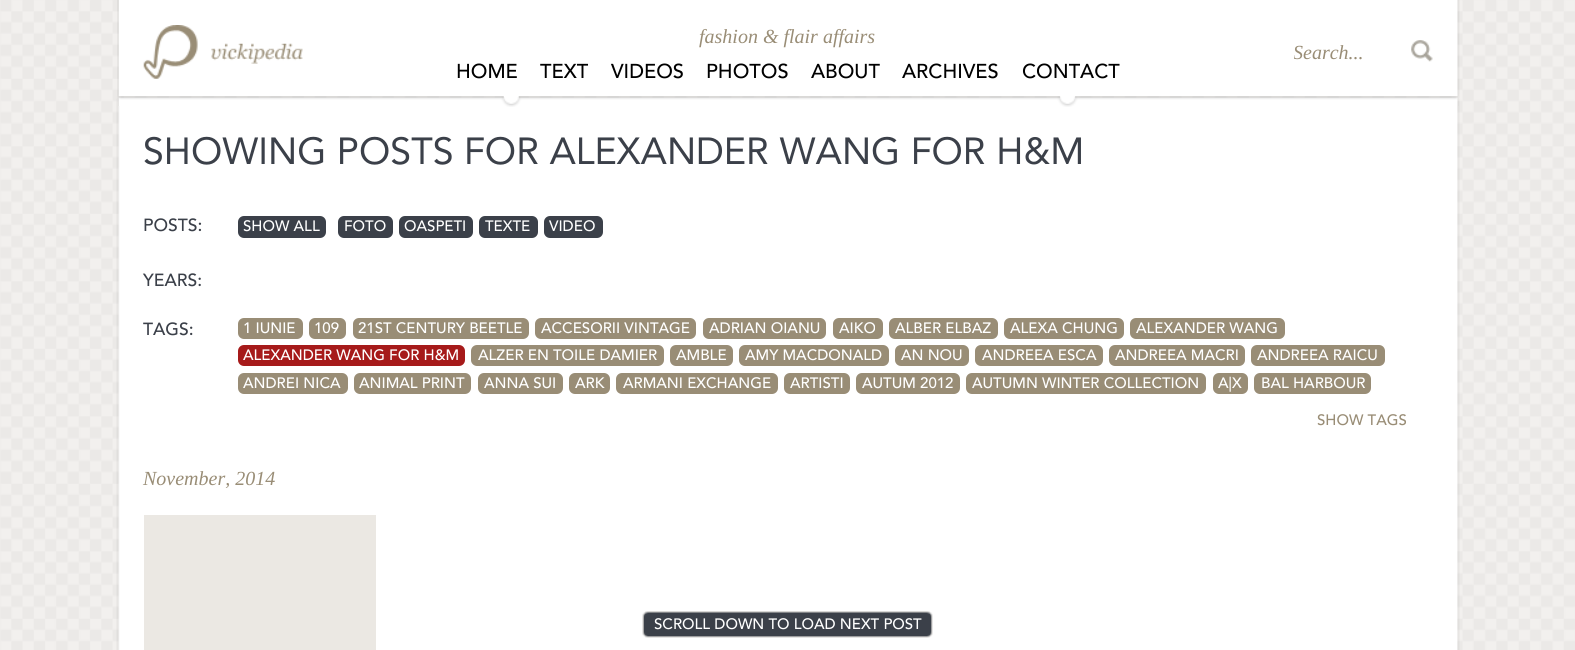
#include <cairo.h>
#include <math.h>
#include <stddef.h>


static void set_color(cairo_t *cr, unsigned color) {
    cairo_set_source_rgb(cr, (color >> 16) / 255.0, (color >> 8 & 255) / 255.0, (color & 255) / 255.0);
}

static void draw_text(cairo_t *cr, double x, double y, const char *s, const char *family, double size, int italic, int bold, unsigned color) {
    cairo_select_font_face(cr, family, italic ? CAIRO_FONT_SLANT_ITALIC : CAIRO_FONT_SLANT_NORMAL,
        bold ? CAIRO_FONT_WEIGHT_BOLD : CAIRO_FONT_WEIGHT_NORMAL);
    cairo_set_font_size(cr, size);
    set_color(cr, color);
    cairo_move_to(cr, x, y);
    cairo_show_text(cr, s);
}

static void fill_rect(cairo_t *cr, double x, double y, double w, double h, unsigned color) {
    set_color(cr, color);
    cairo_rectangle(cr, x, y, w, h);
    cairo_fill(cr);
}

static void rounded_rect(cairo_t *cr, double x, double y, double w, double h, double r) {
    cairo_new_sub_path(cr);
    cairo_arc(cr, x + w - r, y + h - r, r, 0, M_PI / 2);
    cairo_arc(cr, x + r, y + h - r, r, M_PI / 2, M_PI);
    cairo_arc(cr, x + r, y + r, r, M_PI, 1.5 * M_PI);
    cairo_arc(cr, x + w - r, y + r, r, 1.5 * M_PI, 2 * M_PI);
    cairo_close_path(cr);
}

static void draw_image(cairo_t *cr, const char *path, double x, double y, double w, double h) {
    cairo_surface_t *image = cairo_image_surface_create_from_png(path);
    cairo_save(cr);
    cairo_set_source_surface(cr, image, x, y);
    cairo_rectangle(cr, x, y, w, h);
    cairo_fill(cr);
    cairo_restore(cr);
    cairo_surface_destroy(image);
}

int main(void) {
    cairo_surface_t *surface = cairo_image_surface_create(CAIRO_FORMAT_RGB24, 1575, 650);
    cairo_t *cr = cairo_create(surface);
    cairo_font_options_t *options = cairo_font_options_create();
    cairo_font_options_set_hint_metrics(options, CAIRO_HINT_METRICS_OFF);
    cairo_font_options_set_hint_style(options, CAIRO_HINT_STYLE_NONE);
    cairo_set_font_options(cr, options);
    cairo_set_miter_limit(cr, 4);
    set_color(cr, 0xFFFFFF);
    cairo_paint(cr);
    draw_image(cr, "assets/img1.png", 0, 0, 1575, 650);
    draw_image(cr, "assets/img2.png", 117, 0, 1343, 90);
    draw_image(cr, "assets/img3.png", 143, 25, 160, 54);
    draw_text(cr, 699, 43, "fashion & flair affairs", "Liberation Serif", 20, 1, 0, 0x998D76);
    cairo_save(cr);
    cairo_rectangle(cr, 1294, 41, 110, 23);
    cairo_clip(cr);
    draw_text(cr, 1293, 59, "Search...", "Liberation Serif", 20, 1, 0, 0x998D76);
    cairo_restore(cr);
    draw_image(cr, "assets/img4.png", 1411, 40, 22, 22);
    draw_text(cr, 456, 78, "HOME", "Avenir Medium", 20, 0, 0, 0x000000);
    draw_text(cr, 540, 78, "TEXT", "Avenir Medium", 20, 0, 0, 0x000000);
    draw_text(cr, 611, 78, "VIDEOS", "Avenir Medium", 20, 0, 0, 0x000000);
    draw_text(cr, 706, 78, "PHOTOS", "Avenir Medium", 20, 0, 0, 0x000000);
    draw_text(cr, 811, 78, "ABOUT", "Avenir Medium", 20, 0, 0, 0x000000);
    draw_text(cr, 902, 78, "ARCHIVES", "Avenir Medium", 20, 0, 0, 0x000000);
    draw_text(cr, 1022, 78, "CONTACT", "Avenir Medium", 20, 0, 0, 0x000000);
    draw_image(cr, "assets/img6.png", 116, 96, 1344, 10);
    draw_image(cr, "assets/img7.png", 116, 106, 1344, 544);
    draw_image(cr, "assets/img5.png", 117, 90, 1343, 17);
    draw_text(cr, 143, 164, "SHOWING POSTS FOR ALEXANDER WANG FOR H&M", "Avenir", 37.5, 0, 0, 0x3B4049);
    draw_text(cr, 143, 231, "POSTS:", "Avenir Medium", 17.5, 0, 0, 0x3B4049);
    rounded_rect(cr, 238, 216, 88, 22, 6);
    cairo_fill(cr);
    draw_text(cr, 243, 231, "SHOW ALL", "Avenir Medium", 15, 0, 0, 0xFFFFFF);
    set_color(cr, 0x3B4049);
    rounded_rect(cr, 338, 216, 55, 22, 6);
    cairo_fill(cr);
    draw_text(cr, 344, 231, "FOTO", "Avenir Medium", 15, 0, 0, 0xFFFFFF);
    set_color(cr, 0x3B4049);
    rounded_rect(cr, 399, 216, 74, 22, 6);
    cairo_fill(cr);
    draw_text(cr, 404, 231, "OASPETI", "Avenir Medium", 15, 0, 0, 0xFFFFFF);
    set_color(cr, 0x3B4049);
    rounded_rect(cr, 479, 216, 59, 22, 6);
    cairo_fill(cr);
    draw_text(cr, 485, 231, "TEXTE", "Avenir Medium", 15, 0, 0, 0xFFFFFF);
    set_color(cr, 0x3B4049);
    rounded_rect(cr, 544, 216, 59, 22, 6);
    cairo_fill(cr);
    draw_text(cr, 549, 231, "VIDEO", "Avenir Medium", 15, 0, 0, 0xFFFFFF);
    draw_text(cr, 143, 286, "YEARS:", "Avenir Medium", 17.5, 0, 0, 0x3B4049);
    draw_text(cr, 143, 335, "TAGS:", "Avenir Medium", 17.5, 0, 0, 0x3B4049);
    set_color(cr, 0x998D76);
    rounded_rect(cr, 238, 318, 65, 21, 6);
    cairo_fill(cr);
    draw_text(cr, 243, 333, "1 IUNIE", "Avenir Medium", 15, 0, 0, 0xFFFFFF);
    set_color(cr, 0x998D76);
    rounded_rect(cr, 309, 318, 37, 21, 6);
    cairo_fill(cr);
    draw_text(cr, 314, 333, "109", "Avenir Medium", 15, 0, 0, 0xFFFFFF);
    set_color(cr, 0x998D76);
    rounded_rect(cr, 353, 318, 176, 21, 6);
    cairo_fill(cr);
    draw_text(cr, 358, 333, "21ST CENTURY BEETLE", "Avenir Medium", 15, 0, 0, 0xFFFFFF);
    set_color(cr, 0x998D76);
    rounded_rect(cr, 535, 318, 161, 21, 6);
    cairo_fill(cr);
    draw_text(cr, 541, 333, "ACCESORII VINTAGE", "Avenir Medium", 15, 0, 0, 0xFFFFFF);
    set_color(cr, 0x998D76);
    rounded_rect(cr, 703, 318, 123, 21, 6);
    cairo_fill(cr);
    draw_text(cr, 709, 333, "ADRIAN OIANU", "Avenir Medium", 15, 0, 0, 0xFFFFFF);
    set_color(cr, 0x998D76);
    rounded_rect(cr, 833, 318, 50, 21, 6);
    cairo_fill(cr);
    draw_text(cr, 839, 333, "AIKO", "Avenir Medium", 15, 0, 0, 0xFFFFFF);
    set_color(cr, 0x998D76);
    rounded_rect(cr, 889, 318, 109, 21, 6);
    cairo_fill(cr);
    draw_text(cr, 895, 333, "ALBER ELBAZ", "Avenir Medium", 15, 0, 0, 0xFFFFFF);
    set_color(cr, 0x998D76);
    rounded_rect(cr, 1004, 318, 120, 21, 6);
    cairo_fill(cr);
    draw_text(cr, 1010, 333, "ALEXA CHUNG", "Avenir Medium", 15, 0, 0, 0xFFFFFF);
    set_color(cr, 0x998D76);
    rounded_rect(cr, 1130, 318, 155, 21, 6);
    cairo_fill(cr);
    draw_text(cr, 1136, 333, "ALEXANDER WANG", "Avenir Medium", 15, 0, 0, 0xFFFFFF);
    set_color(cr, 0xA61A1A);
    rounded_rect(cr, 238, 345, 227, 21, 6);
    cairo_fill(cr);
    draw_text(cr, 243, 360, "ALEXANDER WANG FOR H&M", "Avenir Medium", 15, 0, 0, 0xFFFFFF);
    set_color(cr, 0x998D76);
    rounded_rect(cr, 471, 345, 193, 21, 6);
    cairo_fill(cr);
    draw_text(cr, 478, 360, "ALZER EN TOILE DAMIER", "Avenir Medium", 15, 0, 0, 0xFFFFFF);
    set_color(cr, 0x998D76);
    rounded_rect(cr, 670, 345, 63, 21, 6);
    cairo_fill(cr);
    draw_text(cr, 676, 360, "AMBLE", "Avenir Medium", 15, 0, 0, 0xFFFFFF);
    set_color(cr, 0x998D76);
    rounded_rect(cr, 739, 345, 150, 21, 6);
    cairo_fill(cr);
    draw_text(cr, 745, 360, "AMY MACDONALD", "Avenir Medium", 15, 0, 0, 0xFFFFFF);
    set_color(cr, 0x998D76);
    rounded_rect(cr, 895, 345, 74, 21, 6);
    cairo_fill(cr);
    draw_text(cr, 901, 360, "AN NOU", "Avenir Medium", 15, 0, 0, 0xFFFFFF);
    set_color(cr, 0x998D76);
    rounded_rect(cr, 975, 345, 128, 21, 6);
    cairo_fill(cr);
    draw_text(cr, 982, 360, "ANDREEA ESCA", "Avenir Medium", 15, 0, 0, 0xFFFFFF);
    set_color(cr, 0x998D76);
    rounded_rect(cr, 1109, 345, 136, 21, 6);
    cairo_fill(cr);
    draw_text(cr, 1115, 360, "ANDREEA MACRI", "Avenir Medium", 15, 0, 0, 0xFFFFFF);
    set_color(cr, 0x998D76);
    rounded_rect(cr, 1251, 345, 134, 21, 6);
    cairo_fill(cr);
    draw_text(cr, 1257, 360, "ANDREEA RAICU", "Avenir Medium", 15, 0, 0, 0xFFFFFF);
    set_color(cr, 0x998D76);
    rounded_rect(cr, 238, 373, 110, 21, 6);
    cairo_fill(cr);
    draw_text(cr, 243, 388, "ANDREI NICA", "Avenir Medium", 15, 0, 0, 0xFFFFFF);
    set_color(cr, 0x998D76);
    rounded_rect(cr, 354, 373, 117, 21, 6);
    cairo_fill(cr);
    draw_text(cr, 359, 388, "ANIMAL PRINT", "Avenir Medium", 15, 0, 0, 0xFFFFFF);
    set_color(cr, 0x998D76);
    rounded_rect(cr, 478, 373, 85, 21, 6);
    cairo_fill(cr);
    draw_text(cr, 484, 388, "ANNA SUI", "Avenir Medium", 15, 0, 0, 0xFFFFFF);
    set_color(cr, 0x998D76);
    rounded_rect(cr, 569, 373, 41, 21, 6);
    cairo_fill(cr);
    draw_text(cr, 575, 388, "ARK", "Avenir Medium", 15, 0, 0, 0xFFFFFF);
    set_color(cr, 0x998D76);
    rounded_rect(cr, 616, 373, 162, 21, 6);
    cairo_fill(cr);
    draw_text(cr, 623, 388, "ARMANI EXCHANGE", "Avenir Medium", 15, 0, 0, 0xFFFFFF);
    set_color(cr, 0x998D76);
    rounded_rect(cr, 784, 373, 66, 21, 6);
    cairo_fill(cr);
    draw_text(cr, 790, 388, "ARTISTI", "Avenir Medium", 15, 0, 0, 0xFFFFFF);
    set_color(cr, 0x998D76);
    rounded_rect(cr, 856, 373, 104, 21, 6);
    cairo_fill(cr);
    draw_text(cr, 862, 388, "AUTUM 2012", "Avenir Medium", 15, 0, 0, 0xFFFFFF);
    set_color(cr, 0x998D76);
    rounded_rect(cr, 966, 373, 240, 21, 6);
    cairo_fill(cr);
    draw_text(cr, 972, 388, "AUTUMN WINTER COLLECTION", "Avenir Medium", 15, 0, 0, 0xFFFFFF);
    set_color(cr, 0x998D76);
    rounded_rect(cr, 1213, 373, 35, 21, 6);
    cairo_fill(cr);
    draw_text(cr, 1218, 388, "A|X", "Avenir Medium", 15, 0, 0, 0xFFFFFF);
    set_color(cr, 0x998D76);
    rounded_rect(cr, 1254, 373, 117, 21, 6);
    cairo_fill(cr);
    draw_text(cr, 1261, 388, "BAL HARBOUR", "Avenir Medium", 15, 0, 0, 0xFFFFFF);
    draw_text(cr, 1317, 425, "SHOW TAGS", "Avenir Medium", 15, 0, 0, 0x998D76);
    draw_text(cr, 143, 485, "November, 2014", "Liberation Serif", 20, 1, 0, 0x998D76);
    fill_rect(cr, 144, 515, 232, 135, 0xEBE8E3);
    draw_image(cr, "assets/img8.png", 642, 611, 291, 27);
    draw_text(cr, 654, 629, "SCROLL DOWN TO LOAD NEXT POST", "Avenir Medium", 15, 0, 0, 0xFFFFFF);
    cairo_surface_write_to_png(surface, "output.png");
    cairo_font_options_destroy(options);
    cairo_destroy(cr);
    cairo_surface_destroy(surface);
    return 0;
}
